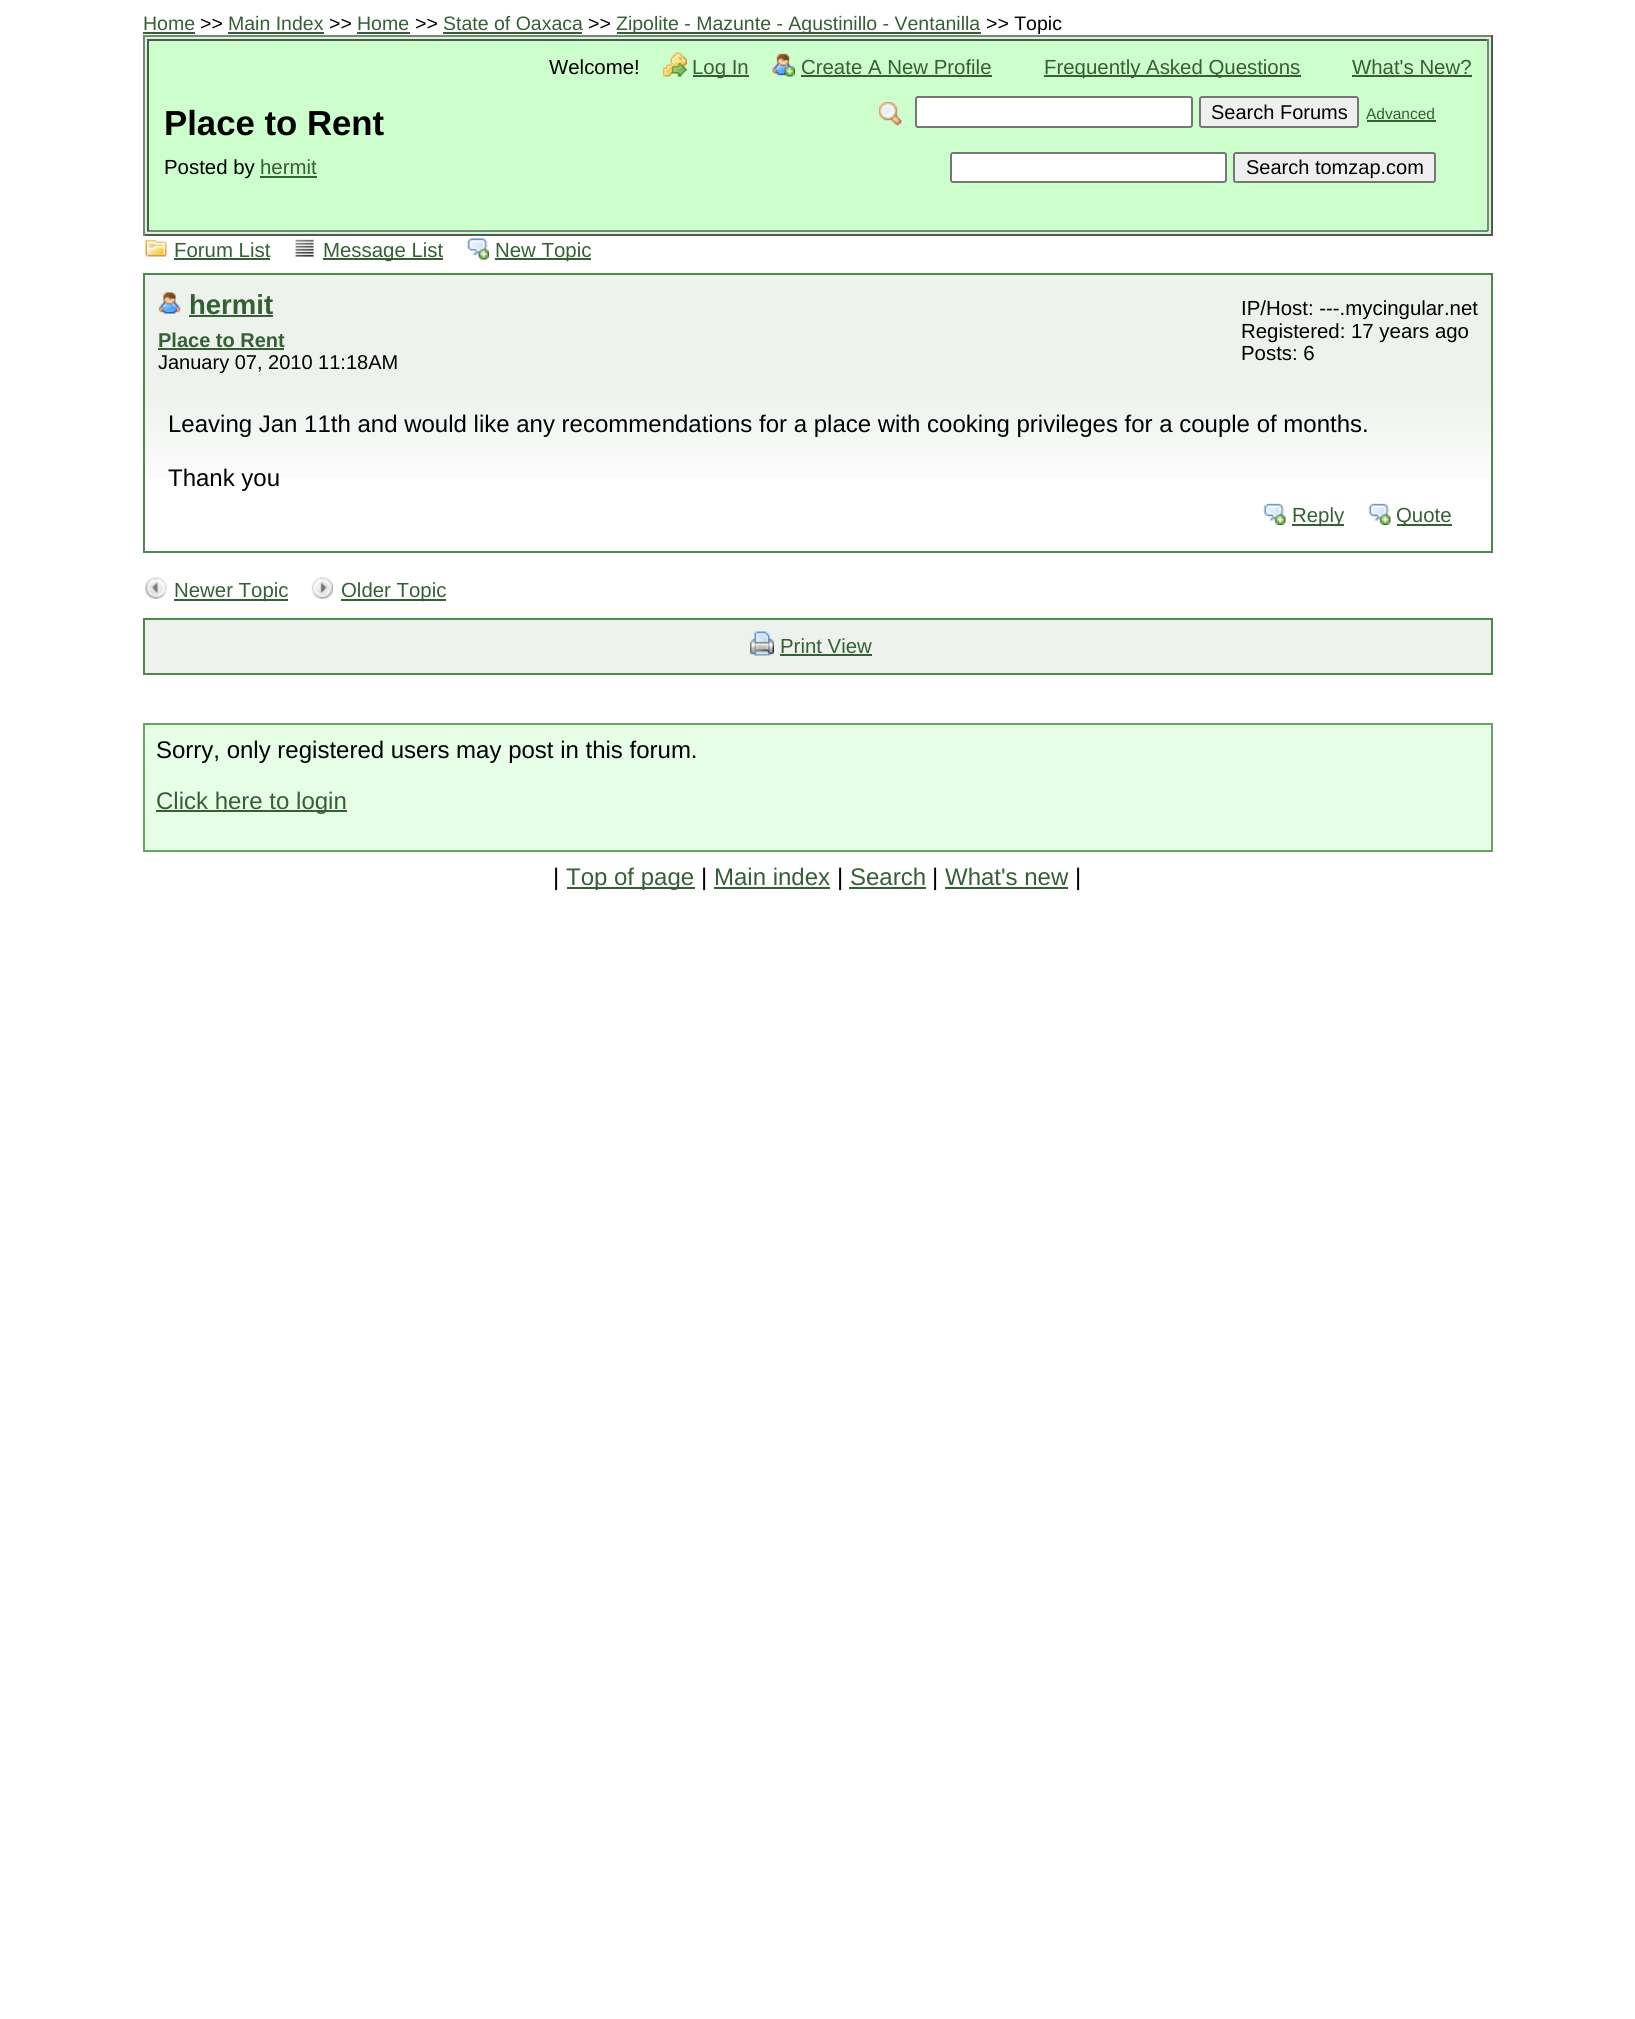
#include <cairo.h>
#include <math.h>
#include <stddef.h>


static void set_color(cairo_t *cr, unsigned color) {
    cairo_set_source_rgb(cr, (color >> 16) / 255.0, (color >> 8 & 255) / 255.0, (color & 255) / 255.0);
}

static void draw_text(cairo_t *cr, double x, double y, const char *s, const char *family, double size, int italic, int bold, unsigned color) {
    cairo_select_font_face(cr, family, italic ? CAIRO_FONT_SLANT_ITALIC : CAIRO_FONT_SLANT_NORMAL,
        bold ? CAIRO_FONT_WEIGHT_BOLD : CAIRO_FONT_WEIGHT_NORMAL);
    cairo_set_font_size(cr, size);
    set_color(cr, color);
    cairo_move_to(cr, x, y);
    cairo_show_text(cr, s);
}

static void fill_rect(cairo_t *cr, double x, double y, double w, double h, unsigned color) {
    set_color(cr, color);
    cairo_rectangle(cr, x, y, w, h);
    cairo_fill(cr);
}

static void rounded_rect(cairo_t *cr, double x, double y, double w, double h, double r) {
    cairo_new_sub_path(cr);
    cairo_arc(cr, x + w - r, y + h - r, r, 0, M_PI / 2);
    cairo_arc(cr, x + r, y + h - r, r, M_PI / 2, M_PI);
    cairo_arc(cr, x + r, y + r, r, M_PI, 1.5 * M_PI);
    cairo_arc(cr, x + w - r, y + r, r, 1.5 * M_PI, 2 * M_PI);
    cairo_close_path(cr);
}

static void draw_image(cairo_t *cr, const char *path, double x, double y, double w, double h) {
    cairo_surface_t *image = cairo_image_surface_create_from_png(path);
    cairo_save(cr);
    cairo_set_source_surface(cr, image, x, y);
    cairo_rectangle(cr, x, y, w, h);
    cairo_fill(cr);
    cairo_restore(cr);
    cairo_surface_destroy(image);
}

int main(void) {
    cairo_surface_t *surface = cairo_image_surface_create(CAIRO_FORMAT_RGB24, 1635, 2019);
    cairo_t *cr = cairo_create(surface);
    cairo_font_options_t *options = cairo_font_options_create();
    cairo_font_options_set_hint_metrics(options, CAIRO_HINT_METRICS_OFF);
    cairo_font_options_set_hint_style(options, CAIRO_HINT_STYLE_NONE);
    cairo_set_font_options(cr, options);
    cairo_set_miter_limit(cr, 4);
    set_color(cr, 0xFFFFFF);
    cairo_paint(cr);
    draw_text(cr, 143, 30, "Home", "Liberation Sans", 19.5, 0, 0, 0x355F35);
    fill_rect(cr, 143, 32, 52, 2, 0x355F35);
    draw_text(cr, 200, 30, ">>", "Liberation Sans", 19.5, 0, 0, 0x000000);
    draw_text(cr, 228, 30, "Main Index", "Liberation Sans", 19.5, 0, 0, 0x355F35);
    fill_rect(cr, 228, 32, 96, 2, 0x355F35);
    draw_text(cr, 329, 30, ">>", "Liberation Sans", 19.5, 0, 0, 0x000000);
    draw_text(cr, 357, 30, "Home", "Liberation Sans", 19.5, 0, 0, 0x355F35);
    fill_rect(cr, 357, 32, 53, 2, 0x355F35);
    draw_text(cr, 415, 30, ">>", "Liberation Sans", 19.5, 0, 0, 0x000000);
    draw_text(cr, 443, 30, "State of Oaxaca", "Liberation Sans", 19.5, 0, 0, 0x355F35);
    fill_rect(cr, 443, 32, 139, 2, 0x355F35);
    draw_text(cr, 588, 30, ">>", "Liberation Sans", 19.5, 0, 0, 0x000000);
    fill_rect(cr, 617, 32, 364, 2, 0x355F35);
    draw_text(cr, 616, 30, "Zipolite - Mazunte - Agustinillo - Ventanilla", "Liberation Sans", 19.5, 0, 0, 0x355F35);
    draw_text(cr, 986, 30, ">> Topic", "Liberation Sans", 19.5, 0, 0, 0x000000);
    fill_rect(cr, 145, 37, 1346, 197, 0xCCFFCC);
    fill_rect(cr, 143, 35, 1350, 2, 0x808080);
    fill_rect(cr, 1491, 35, 2, 201, 0x555555);
    fill_rect(cr, 143, 234, 1350, 2, 0x555555);
    fill_rect(cr, 143, 35, 2, 201, 0x808080);
    fill_rect(cr, 147, 39, 1341, 2, 0x555555);
    fill_rect(cr, 1487, 39, 2, 192, 0x808080);
    fill_rect(cr, 147, 230, 1341, 2, 0x808080);
    fill_rect(cr, 147, 39, 2, 192, 0x555555);
    draw_text(cr, 549, 74, "Welcome!", "Liberation Sans", 20.4, 0, 0, 0x000000);
    draw_image(cr, "assets/img1.png", 663, 52, 24, 25);
    fill_rect(cr, 693, 75, 56, 2, 0x355F35);
    draw_text(cr, 692, 74, "Log In", "Liberation Sans", 20.4, 0, 0, 0x355F35);
    draw_image(cr, "assets/img2.png", 772, 53, 23, 24);
    draw_text(cr, 801, 74, "Create A New Profile", "Liberation Sans", 20.4, 0, 0, 0x355F35);
    fill_rect(cr, 801, 75, 191, 2, 0x355F35);
    fill_rect(cr, 1044, 75, 257, 2, 0x355F35);
    draw_text(cr, 1044, 74, "Frequently Asked Questions", "Liberation Sans", 20.4, 0, 0, 0x355F35);
    draw_text(cr, 1352, 74, "What's New?", "Liberation Sans", 20.4, 0, 0, 0x355F35);
    fill_rect(cr, 1352, 75, 120, 2, 0x355F35);
    draw_text(cr, 164, 135, "Place to Rent", "Liberation Sans", 34.75, 0, 1, 0x000000);
    draw_text(cr, 164, 174, "Posted by", "Liberation Sans", 20.4, 0, 0, 0x000000);
    draw_text(cr, 260, 174, "hermit", "Liberation Sans", 20.4, 0, 0, 0x355F35);
    fill_rect(cr, 260, 176, 57, 2, 0x355F35);
    draw_image(cr, "assets/img3.png", 879, 102, 24, 24);
    set_color(cr, 0xFFFFFF);
    rounded_rect(cr, 916, 97, 276, 30, 2);
    cairo_fill_preserve(cr);
    set_color(cr, 0x767676);
    cairo_stroke(cr);
    set_color(cr, 0xEFEFEF);
    rounded_rect(cr, 1200, 97, 158, 30, 2);
    cairo_fill_preserve(cr);
    set_color(cr, 0x767676);
    cairo_stroke(cr);
    draw_text(cr, 1211, 119, "Search Forums", "Liberation Sans", 20, 0, 0, 0x000000);
    draw_text(cr, 1366, 119, "Advanced", "Liberation Sans", 15.5, 0, 0, 0x355F35);
    fill_rect(cr, 1367, 120, 69, 2, 0x355F35);
    set_color(cr, 0xFFFFFF);
    rounded_rect(cr, 951, 153, 275, 29, 2);
    cairo_fill_preserve(cr);
    set_color(cr, 0x767676);
    cairo_stroke(cr);
    set_color(cr, 0xEFEFEF);
    rounded_rect(cr, 1234, 153, 201, 29, 2);
    cairo_fill_preserve(cr);
    set_color(cr, 0x767676);
    cairo_stroke(cr);
    draw_text(cr, 1246, 174, "Search tomzap.com", "Liberation Sans", 20, 0, 0, 0x000000);
    draw_image(cr, "assets/img4.png", 145, 239, 22, 18);
    draw_text(cr, 174, 257, "Forum List", "Liberation Sans", 20.4, 0, 0, 0x355F35);
    fill_rect(cr, 174, 258, 96, 2, 0x355F35);
    draw_image(cr, "assets/img5.png", 295, 239, 19, 18);
    fill_rect(cr, 323, 258, 120, 2, 0x355F35);
    draw_text(cr, 323, 257, "Message List", "Liberation Sans", 20.4, 0, 0, 0x355F35);
    draw_image(cr, "assets/img6.png", 466, 238, 23, 22);
    fill_rect(cr, 495, 258, 96, 2, 0x355F35);
    draw_text(cr, 495, 257, "New Topic", "Liberation Sans", 20.4, 0, 0, 0x355F35);
    fill_rect(cr, 145, 275, 1346, 112, 0xEDF2ED);
    fill_rect(cr, 143, 273, 1350, 2, 0x4D894D);
    fill_rect(cr, 1491, 273, 2, 279, 0x4D894D);
    fill_rect(cr, 143, 273, 2, 114, 0x4D894D);
    draw_image(cr, "assets/img7.png", 158, 292, 23, 22);
    draw_text(cr, 189, 314, "hermit", "Liberation Sans", 27.5, 0, 1, 0x355F35);
    fill_rect(cr, 189, 315, 84, 2, 0x355F35);
    draw_text(cr, 158, 347, "Place to Rent", "Liberation Sans", 20, 0, 1, 0x355F35);
    fill_rect(cr, 158, 348, 126, 2, 0x355F35);
    draw_text(cr, 158, 369, "January 07, 2010 11:18AM", "Liberation Sans", 20, 0, 0, 0x000000);
    draw_text(cr, 1241, 315, "IP/Host: ---.mycingular.net", "Liberation Sans", 20.4, 0, 0, 0x000000);
    draw_text(cr, 1241, 338, "Registered: 17 years ago", "Liberation Sans", 20.4, 0, 0, 0x000000);
    draw_text(cr, 1241, 360, "Posts: 6", "Liberation Sans", 20.4, 0, 0, 0x000000);
    draw_image(cr, "assets/img8.png", 142, 387, 1349, 91);
    fill_rect(cr, 143, 551, 1350, 2, 0x4D894D);
    fill_rect(cr, 143, 387, 2, 165, 0x4D894D);
    draw_text(cr, 168, 432, "Leaving Jan 11th and would like any recommendations for a place with cooking privileges for a couple of months.", "Liberation Sans", 24, 0, 0, 0x000000);
    draw_text(cr, 168, 486, "Thank you", "Liberation Sans", 24, 0, 0, 0x000000);
    draw_image(cr, "assets/img9.png", 1263, 503, 23, 22);
    fill_rect(cr, 1292, 524, 52, 2, 0x355F35);
    draw_text(cr, 1292, 522, "Reply", "Liberation Sans", 20.4, 0, 0, 0x355F35);
    draw_image(cr, "assets/img10.png", 1368, 503, 23, 22);
    fill_rect(cr, 1397, 524, 55, 2, 0x355F35);
    draw_text(cr, 1396, 522, "Quote", "Liberation Sans", 20.4, 0, 0, 0x355F35);
    draw_image(cr, "assets/img11.png", 145, 577, 22, 22);
    fill_rect(cr, 174, 599, 114, 2, 0x355F35);
    draw_text(cr, 174, 597, "Newer Topic", "Liberation Sans", 20.4, 0, 0, 0x355F35);
    draw_image(cr, "assets/img12.png", 311, 577, 23, 22);
    fill_rect(cr, 341, 599, 105, 2, 0x355F35);
    draw_text(cr, 341, 597, "Older Topic", "Liberation Sans", 20.4, 0, 0, 0x355F35);
    set_color(cr, 0xEDF2ED);
    cairo_rectangle(cr, 144, 619, 1348, 55);
    cairo_fill_preserve(cr);
    set_color(cr, 0x4D894D);
    cairo_stroke(cr);
    draw_image(cr, "assets/img13.png", 750, 631, 24, 25);
    draw_text(cr, 780, 653, "Print View", "Liberation Sans", 20.4, 0, 0, 0x355F35);
    fill_rect(cr, 780, 654, 92, 2, 0x355F35);
    set_color(cr, 0xE6FFE6);
    cairo_rectangle(cr, 144, 724, 1348, 127);
    cairo_fill_preserve(cr);
    set_color(cr, 0x62A762);
    cairo_stroke(cr);
    draw_text(cr, 156, 758, "Sorry, only registered users may post in this forum.", "Liberation Sans", 24, 0, 0, 0x000000);
    fill_rect(cr, 156, 810, 191, 2, 0x355F35);
    draw_text(cr, 156, 809, "Click here to login", "Liberation Sans", 24, 0, 0, 0x355F35);
    draw_text(cr, 553, 885, "|", "Liberation Sans", 24, 0, 0, 0x000000);
    fill_rect(cr, 567, 887, 128, 2, 0x355F35);
    draw_text(cr, 566, 885, "Top of page", "Liberation Sans", 24, 0, 0, 0x355F35);
    draw_text(cr, 701, 885, "|", "Liberation Sans", 24, 0, 0, 0x000000);
    draw_text(cr, 714, 885, "Main index", "Liberation Sans", 24, 0, 0, 0x355F35);
    fill_rect(cr, 714, 887, 116, 2, 0x355F35);
    draw_text(cr, 837, 885, "|", "Liberation Sans", 24, 0, 0, 0x000000);
    draw_text(cr, 850, 885, "Search", "Liberation Sans", 24, 0, 0, 0x355F35);
    fill_rect(cr, 849, 887, 77, 2, 0x355F35);
    draw_text(cr, 932, 885, "|", "Liberation Sans", 24, 0, 0, 0x000000);
    draw_text(cr, 945, 885, "What's new", "Liberation Sans", 24, 0, 0, 0x355F35);
    fill_rect(cr, 945, 887, 123, 2, 0x355F35);
    draw_text(cr, 1075, 885, "|", "Liberation Sans", 24, 0, 0, 0x000000);
    cairo_surface_write_to_png(surface, "output.png");
    cairo_font_options_destroy(options);
    cairo_destroy(cr);
    cairo_surface_destroy(surface);
    return 0;
}
